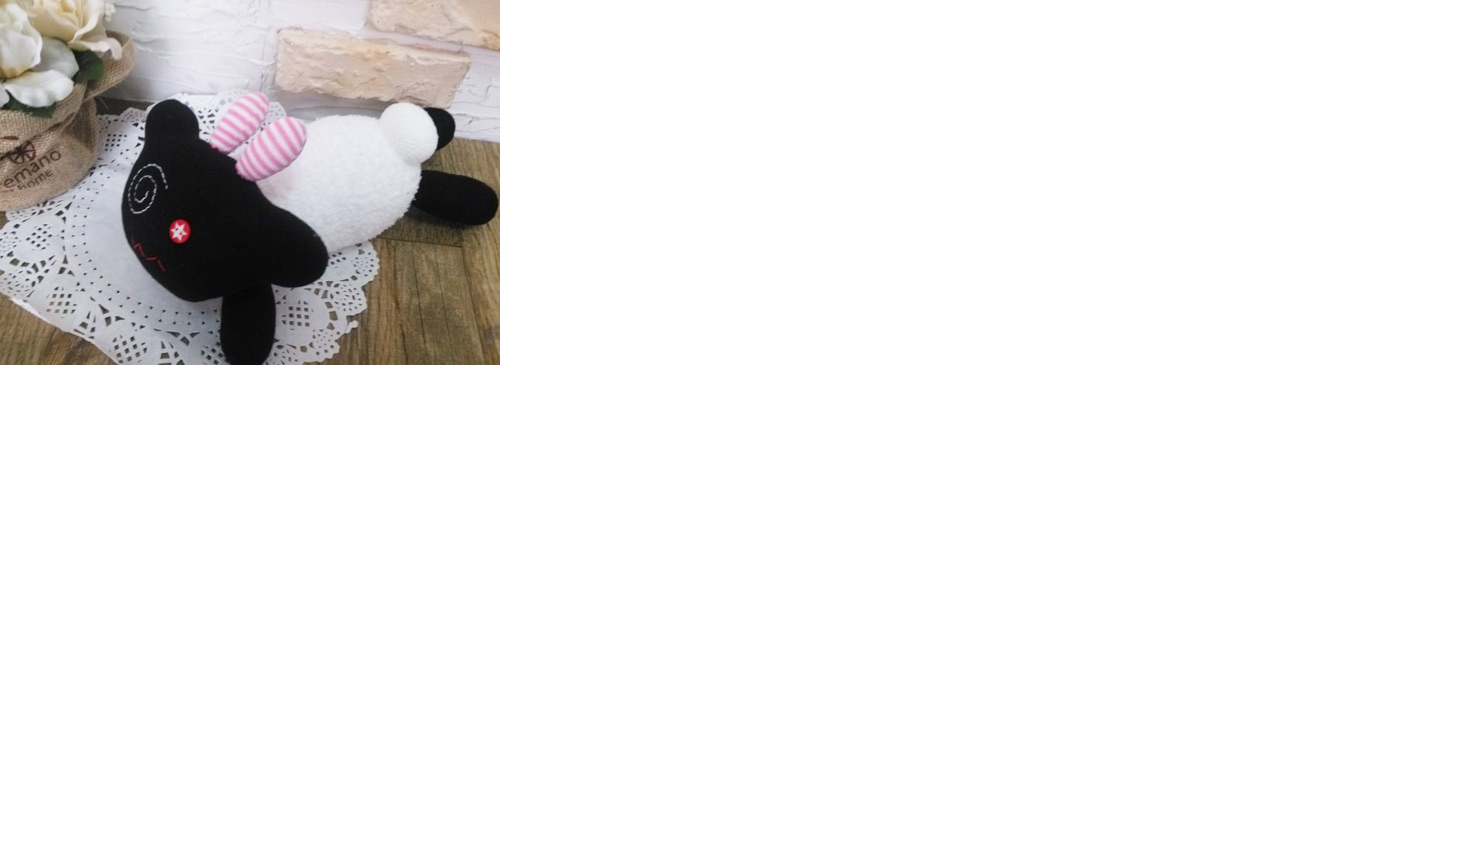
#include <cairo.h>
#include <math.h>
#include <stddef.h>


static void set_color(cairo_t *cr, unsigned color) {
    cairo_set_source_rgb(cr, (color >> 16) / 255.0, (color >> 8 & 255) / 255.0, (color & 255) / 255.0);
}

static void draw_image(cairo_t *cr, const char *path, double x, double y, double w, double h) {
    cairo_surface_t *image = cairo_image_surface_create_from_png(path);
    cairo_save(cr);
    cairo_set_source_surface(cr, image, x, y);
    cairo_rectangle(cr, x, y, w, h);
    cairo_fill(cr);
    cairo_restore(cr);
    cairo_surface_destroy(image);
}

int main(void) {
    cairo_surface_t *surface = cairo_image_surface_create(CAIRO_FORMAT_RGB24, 1467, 847);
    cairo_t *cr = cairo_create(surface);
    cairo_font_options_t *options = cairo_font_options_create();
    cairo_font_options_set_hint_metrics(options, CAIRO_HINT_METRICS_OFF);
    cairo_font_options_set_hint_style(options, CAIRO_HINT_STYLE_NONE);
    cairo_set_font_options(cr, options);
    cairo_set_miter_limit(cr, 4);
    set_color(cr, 0xFFFFFF);
    cairo_paint(cr);
    draw_image(cr, "assets/img1.png", 0, 0, 500, 365);
    cairo_surface_write_to_png(surface, "output.png");
    cairo_font_options_destroy(options);
    cairo_destroy(cr);
    cairo_surface_destroy(surface);
    return 0;
}
